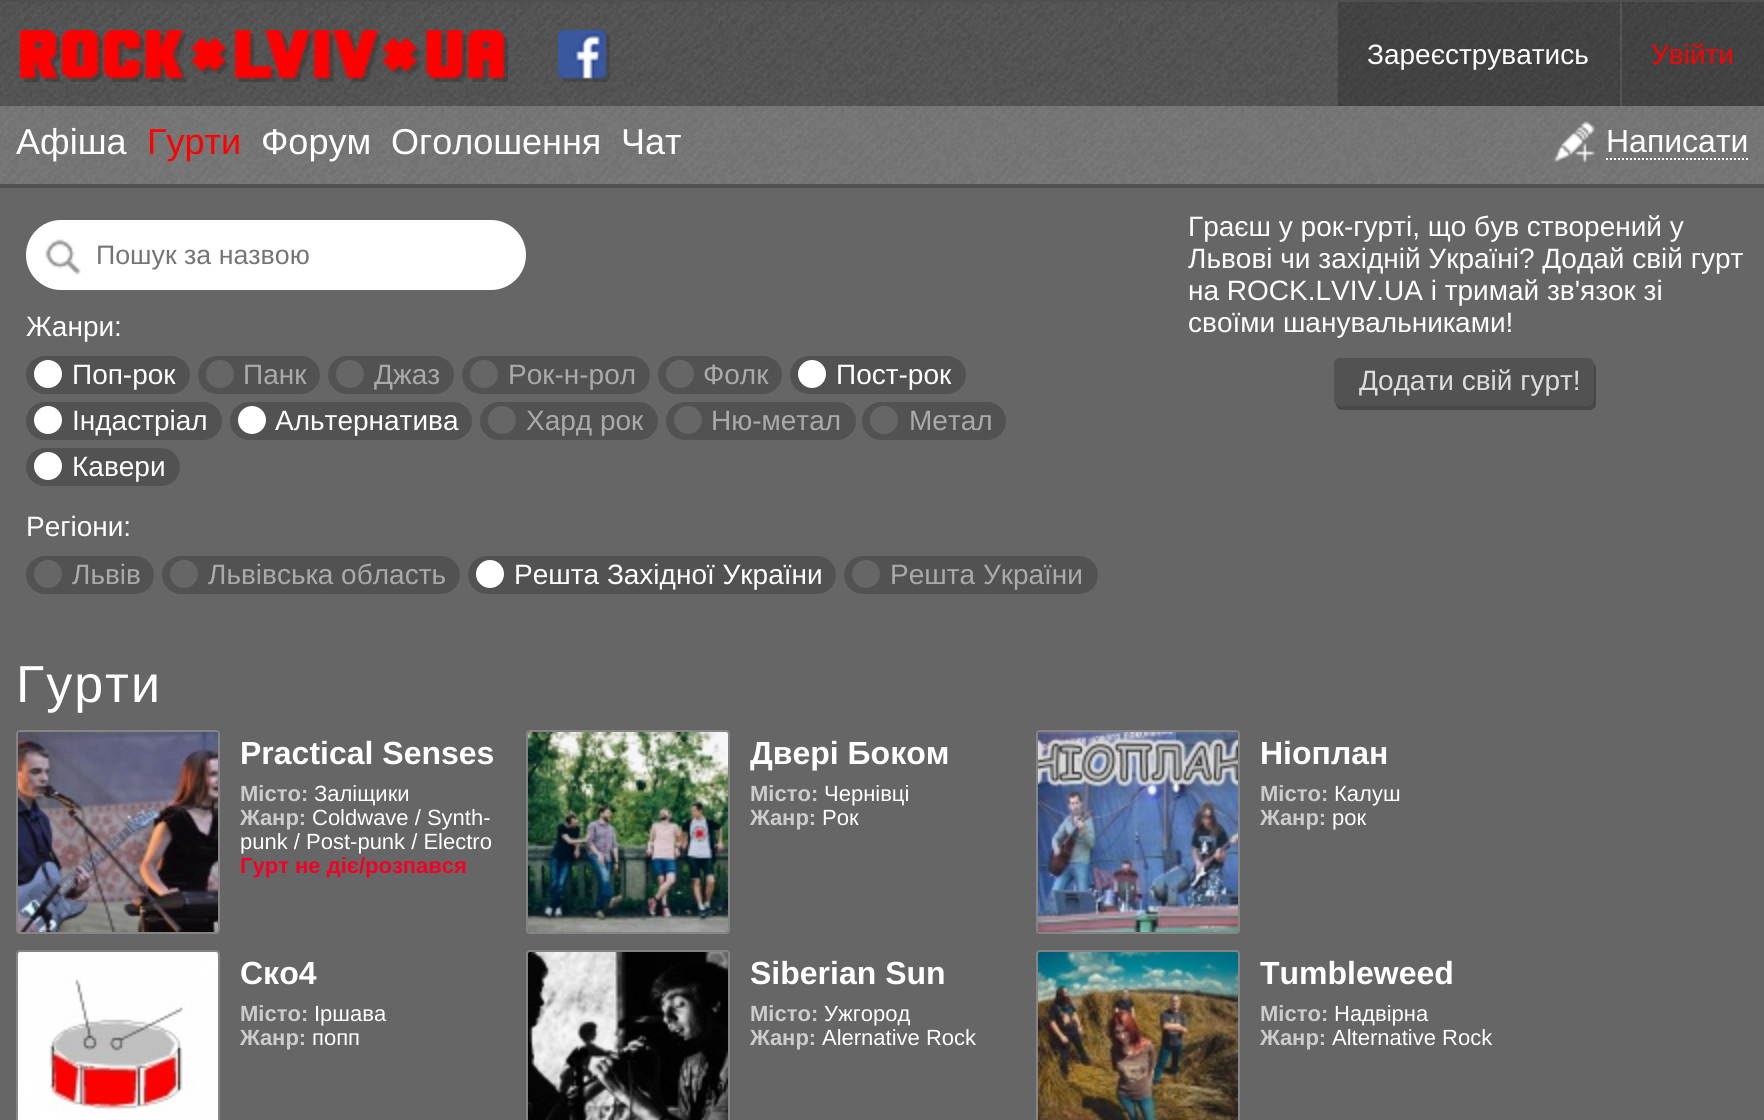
#include <cairo.h>
#include <math.h>
#include <stddef.h>


static void set_color(cairo_t *cr, unsigned color) {
    cairo_set_source_rgb(cr, (color >> 16) / 255.0, (color >> 8 & 255) / 255.0, (color & 255) / 255.0);
}

static void draw_text(cairo_t *cr, double x, double y, const char *s, const char *family, double size, int italic, int bold, unsigned color) {
    cairo_select_font_face(cr, family, italic ? CAIRO_FONT_SLANT_ITALIC : CAIRO_FONT_SLANT_NORMAL,
        bold ? CAIRO_FONT_WEIGHT_BOLD : CAIRO_FONT_WEIGHT_NORMAL);
    cairo_set_font_size(cr, size);
    set_color(cr, color);
    cairo_move_to(cr, x, y);
    cairo_show_text(cr, s);
}

static void draw_spaced(cairo_t *cr, double x, double y, const char *s, double letter, double word) {
    cairo_move_to(cr, x, y);
    while (*s) {
        char ch[5] = {0};
        int n = 0;
        do ch[n++] = *s++; while ((*s & 0xC0) == 0x80);
        cairo_show_text(cr, ch);
        cairo_rel_move_to(cr, letter + word * (*ch == ' '), 0);
    }
}

static void fill_rect(cairo_t *cr, double x, double y, double w, double h, unsigned color) {
    set_color(cr, color);
    cairo_rectangle(cr, x, y, w, h);
    cairo_fill(cr);
}

static void rounded_rect(cairo_t *cr, double x, double y, double w, double h, double r) {
    cairo_new_sub_path(cr);
    cairo_arc(cr, x + w - r, y + h - r, r, 0, M_PI / 2);
    cairo_arc(cr, x + r, y + h - r, r, M_PI / 2, M_PI);
    cairo_arc(cr, x + r, y + r, r, M_PI, 1.5 * M_PI);
    cairo_arc(cr, x + w - r, y + r, r, 1.5 * M_PI, 2 * M_PI);
    cairo_close_path(cr);
}

static void draw_image(cairo_t *cr, const char *path, double x, double y, double w, double h) {
    cairo_surface_t *image = cairo_image_surface_create_from_png(path);
    cairo_save(cr);
    cairo_set_source_surface(cr, image, x, y);
    cairo_rectangle(cr, x, y, w, h);
    cairo_fill(cr);
    cairo_restore(cr);
    cairo_surface_destroy(image);
}

int main(void) {
    cairo_surface_t *surface = cairo_image_surface_create(CAIRO_FORMAT_RGB24, 1764, 1120);
    cairo_t *cr = cairo_create(surface);
    cairo_font_options_t *options = cairo_font_options_create();
    cairo_font_options_set_hint_metrics(options, CAIRO_HINT_METRICS_OFF);
    cairo_font_options_set_hint_style(options, CAIRO_HINT_STYLE_NONE);
    cairo_set_font_options(cr, options);
    cairo_set_miter_limit(cr, 4);
    set_color(cr, 0x666666);
    cairo_paint(cr);
    cairo_set_source_rgba(cr, 0, 0, 0, 0.2);
    cairo_rectangle(cr, 0, 184, 1764, 4);
    cairo_fill(cr);
    fill_rect(cr, 0, 0, 1764, 2, 0x4F4F4F);
    draw_image(cr, "assets/img1.png", 0, 2, 1764, 182);
    draw_image(cr, "assets/img2.png", 20, 30, 488, 52);
    draw_image(cr, "assets/img3.png", 558, 30, 52, 52);
    cairo_set_source_rgba(cr, 0, 0, 0, 0.2);
    cairo_rectangle(cr, 1338, 2, 282, 104);
    cairo_fill(cr);
    draw_text(cr, 1367, 64, "Зареєструватись", "Liberation Sans", 28, 0, 0, 0xFFFFFF);
    cairo_set_source_rgba(cr, 0, 0, 0, 0.2);
    cairo_rectangle(cr, 1622, 2, 142, 104);
    cairo_fill(cr);
    draw_text(cr, 1651, 64, "Увійти", "Liberation Sans", 28, 0, 0, 0xFF0000);
    cairo_set_source_rgba(cr, 1, 1, 1, 0.2);
    cairo_rectangle(cr, 0, 106, 1764, 78);
    cairo_fill(cr);
    draw_text(cr, 16, 154, "Афіша", "Liberation Sans", 36, 0, 0, 0xFFFFFF);
    draw_text(cr, 147, 154, "Гурти", "Liberation Sans", 36, 0, 0, 0xFF0000);
    draw_text(cr, 261, 154, "Форум", "Liberation Sans", 36, 0, 0, 0xFFFFFF);
    draw_text(cr, 391, 154, "Оголошення", "Liberation Sans", 36, 0, 0, 0xFFFFFF);
    draw_text(cr, 621, 154, "Чат", "Liberation Sans", 36, 0, 0, 0xFFFFFF);
    draw_image(cr, "assets/img4.png", 1553, 121, 42, 42);
    draw_text(cr, 1606, 152, "Написати", "Liberation Sans", 32, 0, 0, 0xFFFFFF);
    cairo_new_path(cr);
    cairo_move_to(cr, 1606, 159);
    cairo_line_to(cr, 1748, 159);
    cairo_set_dash(cr, (double[]){2, 2}, 2, 0);
    cairo_stroke(cr);
    rounded_rect(cr, 26, 220, 500, 70, 35);
    cairo_fill(cr);
    draw_image(cr, "assets/img5.png", 45, 239, 36, 36);
    draw_text(cr, 96, 264, "Пошук за назвою", "Liberation Sans", 26.75, 0, 0, 0x757575);
    draw_text(cr, 26, 336, "Жанри:", "Liberation Sans", 28, 0, 0, 0xFFFFFF);
    set_color(cr, 0x525252);
    rounded_rect(cr, 26, 356, 164, 38, 19);
    cairo_fill(cr);
    set_color(cr, 0xFFFFFF);
    cairo_arc(cr, 48, 374, 14, 0, 2 * M_PI);
    cairo_fill(cr);
    draw_text(cr, 72, 384, "Поп-рок", "Liberation Sans", 28, 0, 0, 0xFFFFFF);
    set_color(cr, 0x525252);
    rounded_rect(cr, 198, 356, 122, 38, 19);
    cairo_fill(cr);
    set_color(cr, 0x666666);
    cairo_arc(cr, 220, 374, 14, 0, 2 * M_PI);
    cairo_fill(cr);
    draw_text(cr, 243, 384, "Панк", "Liberation Sans", 28, 0, 0, 0xAAAAAA);
    set_color(cr, 0x525252);
    rounded_rect(cr, 328, 356, 126, 38, 19);
    cairo_fill(cr);
    set_color(cr, 0x666666);
    cairo_arc(cr, 350, 374, 14, 0, 2 * M_PI);
    cairo_fill(cr);
    draw_text(cr, 374, 384, "Джаз", "Liberation Sans", 28, 0, 0, 0xAAAAAA);
    set_color(cr, 0x525252);
    rounded_rect(cr, 462, 356, 188, 38, 19);
    cairo_fill(cr);
    set_color(cr, 0x666666);
    cairo_arc(cr, 484, 374, 14, 0, 2 * M_PI);
    cairo_fill(cr);
    draw_text(cr, 508, 384, "Рок-н-рол", "Liberation Sans", 28, 0, 0, 0xAAAAAA);
    set_color(cr, 0x525252);
    rounded_rect(cr, 658, 356, 124, 38, 19);
    cairo_fill(cr);
    set_color(cr, 0x666666);
    cairo_arc(cr, 680, 374, 14, 0, 2 * M_PI);
    cairo_fill(cr);
    draw_text(cr, 703, 384, "Фолк", "Liberation Sans", 28, 0, 0, 0xAAAAAA);
    set_color(cr, 0x525252);
    rounded_rect(cr, 790, 356, 176, 38, 19);
    cairo_fill(cr);
    set_color(cr, 0xFFFFFF);
    cairo_arc(cr, 812, 374, 14, 0, 2 * M_PI);
    cairo_fill(cr);
    draw_text(cr, 836, 384, "Пост-рок", "Liberation Sans", 28, 0, 0, 0xFFFFFF);
    set_color(cr, 0x525252);
    rounded_rect(cr, 26, 402, 196, 38, 19);
    cairo_fill(cr);
    set_color(cr, 0xFFFFFF);
    cairo_arc(cr, 48, 420, 14, 0, 2 * M_PI);
    cairo_fill(cr);
    draw_text(cr, 72, 430, "Індастріал", "Liberation Sans", 28, 0, 0, 0xFFFFFF);
    set_color(cr, 0x525252);
    rounded_rect(cr, 230, 402, 242, 38, 19);
    cairo_fill(cr);
    set_color(cr, 0xFFFFFF);
    cairo_arc(cr, 252, 420, 14, 0, 2 * M_PI);
    cairo_fill(cr);
    draw_text(cr, 275, 430, "Альтернатива", "Liberation Sans", 28, 0, 0, 0xFFFFFF);
    set_color(cr, 0x525252);
    rounded_rect(cr, 480, 402, 178, 38, 19);
    cairo_fill(cr);
    set_color(cr, 0x666666);
    cairo_arc(cr, 502, 420, 14, 0, 2 * M_PI);
    cairo_fill(cr);
    draw_text(cr, 526, 430, "Хард рок", "Liberation Sans", 28, 0, 0, 0xAAAAAA);
    set_color(cr, 0x525252);
    rounded_rect(cr, 666, 402, 190, 38, 19);
    cairo_fill(cr);
    set_color(cr, 0x666666);
    cairo_arc(cr, 688, 420, 14, 0, 2 * M_PI);
    cairo_fill(cr);
    draw_text(cr, 711, 430, "Ню-метал", "Liberation Sans", 28, 0, 0, 0xAAAAAA);
    set_color(cr, 0x525252);
    rounded_rect(cr, 862, 402, 144, 38, 19);
    cairo_fill(cr);
    set_color(cr, 0x666666);
    cairo_arc(cr, 884, 420, 14, 0, 2 * M_PI);
    cairo_fill(cr);
    draw_text(cr, 909, 430, "Метал", "Liberation Sans", 28, 0, 0, 0xAAAAAA);
    set_color(cr, 0x525252);
    rounded_rect(cr, 26, 448, 154, 38, 19);
    cairo_fill(cr);
    set_color(cr, 0xFFFFFF);
    cairo_arc(cr, 48, 466, 14, 0, 2 * M_PI);
    cairo_fill(cr);
    draw_text(cr, 72, 476, "Кавери", "Liberation Sans", 28, 0, 0, 0xFFFFFF);
    draw_text(cr, 26, 536, "Регіони:", "Liberation Sans", 28, 0, 0, 0xFFFFFF);
    set_color(cr, 0x525252);
    rounded_rect(cr, 26, 556, 128, 38, 19);
    cairo_fill(cr);
    set_color(cr, 0x666666);
    cairo_arc(cr, 48, 574, 14, 0, 2 * M_PI);
    cairo_fill(cr);
    draw_text(cr, 72, 584, "Львів", "Liberation Sans", 28, 0, 0, 0xAAAAAA);
    set_color(cr, 0x525252);
    rounded_rect(cr, 162, 556, 298, 38, 19);
    cairo_fill(cr);
    set_color(cr, 0x666666);
    cairo_arc(cr, 184, 574, 14, 0, 2 * M_PI);
    cairo_fill(cr);
    draw_text(cr, 208, 584, "Львівська область", "Liberation Sans", 28, 0, 0, 0xAAAAAA);
    set_color(cr, 0x525252);
    rounded_rect(cr, 468, 556, 368, 38, 19);
    cairo_fill(cr);
    set_color(cr, 0xFFFFFF);
    cairo_arc(cr, 490, 574, 14, 0, 2 * M_PI);
    cairo_fill(cr);
    draw_text(cr, 514, 584, "Решта Західної України", "Liberation Sans", 28, 0, 0, 0xFFFFFF);
    set_color(cr, 0x525252);
    rounded_rect(cr, 844, 556, 254, 38, 19);
    cairo_fill(cr);
    set_color(cr, 0x666666);
    cairo_arc(cr, 866, 574, 14, 0, 2 * M_PI);
    cairo_fill(cr);
    draw_text(cr, 890, 584, "Решта України", "Liberation Sans", 28, 0, 0, 0xAAAAAA);
    draw_text(cr, 1188, 236, "Граєш у рок-гурті, що був створений у", "Liberation Sans", 28, 0, 0, 0xFFFFFF);
    draw_text(cr, 1188, 268, "Львові чи західній Україні? Додай свій гурт", "Liberation Sans", 28, 0, 0, 0xFFFFFF);
    draw_text(cr, 1188, 300, "на ROCK.LVIV.UA і тримай зв'язок зі", "Liberation Sans", 28, 0, 0, 0xFFFFFF);
    draw_text(cr, 1188, 332, "своїми шанувальниками!", "Liberation Sans", 28, 0, 0, 0xFFFFFF);
    set_color(cr, 0x474747);
    cairo_new_path(cr);
    cairo_move_to(cr, 1336, 404);
    cairo_curve_to(cr, 1336, 408, 1339, 410, 1342, 410);
    cairo_line_to(cr, 1590, 410);
    cairo_curve_to(cr, 1593, 410, 1596, 407, 1596, 404);
    cairo_line_to(cr, 1596, 368);
    cairo_curve_to(cr, 1596, 366, 1595, 365, 1594, 364);
    cairo_line_to(cr, 1594, 400);
    cairo_curve_to(cr, 1594, 403, 1591, 406, 1588, 406);
    cairo_line_to(cr, 1340, 406);
    cairo_curve_to(cr, 1338, 406, 1337, 405, 1336, 404);
    cairo_close_path(cr);
    cairo_fill(cr);
    cairo_set_source_rgba(cr, 0, 0, 0, 0.2);
    rounded_rect(cr, 1334, 358, 260, 48, 6);
    cairo_fill(cr);
    draw_text(cr, 1359, 390, "Додати свій гурт!", "Liberation Sans", 28, 0, 0, 0xDDDDDD);
    cairo_set_font_size(cr, 52);
    set_color(cr, 0xFFFFFF);
    draw_spaced(cr, 16, 702, "Гурти", 2, 0);
    rounded_rect(cr, 17, 731, 202, 202, 3);
    set_color(cr, 0x858585);
    cairo_set_dash(cr, NULL, 0, 0);
    cairo_stroke(cr);
    draw_image(cr, "assets/img6.png", 18, 732, 200, 200);
    draw_text(cr, 240, 764, "Practical Senses", "Liberation Sans", 32, 0, 1, 0xFFFFFF);
    draw_text(cr, 240, 801, "Місто:", "Liberation Sans", 22, 0, 1, 0xCCCCCC);
    draw_text(cr, 314, 801, "Заліщики", "Liberation Sans", 22, 0, 0, 0xFFFFFF);
    draw_text(cr, 240, 825, "Жанр:", "Liberation Sans", 22, 0, 1, 0xCCCCCC);
    draw_text(cr, 312, 825, "Coldwave / Synth-", "Liberation Sans", 22, 0, 0, 0xFFFFFF);
    draw_text(cr, 240, 849, "punk / Post-punk / Electro", "Liberation Sans", 22, 0, 0, 0xFFFFFF);
    draw_text(cr, 240, 873, "Гурт не діє/розпався", "Liberation Sans", 22, 0, 1, 0xF50025);
    rounded_rect(cr, 527, 731, 202, 202, 3);
    set_color(cr, 0x858585);
    cairo_stroke(cr);
    draw_image(cr, "assets/img7.png", 528, 732, 200, 200);
    draw_text(cr, 750, 764, "Двері Боком", "Liberation Sans", 32, 0, 1, 0xFFFFFF);
    draw_text(cr, 750, 801, "Місто:", "Liberation Sans", 22, 0, 1, 0xCCCCCC);
    draw_text(cr, 824, 801, "Чернівці", "Liberation Sans", 22, 0, 0, 0xFFFFFF);
    draw_text(cr, 750, 825, "Жанр:", "Liberation Sans", 22, 0, 1, 0xCCCCCC);
    draw_text(cr, 822, 825, "Рок", "Liberation Sans", 22, 0, 0, 0xFFFFFF);
    rounded_rect(cr, 1037, 731, 202, 202, 3);
    set_color(cr, 0x858585);
    cairo_stroke(cr);
    draw_image(cr, "assets/img8.png", 1038, 732, 200, 200);
    draw_text(cr, 1260, 764, "Ніоплан", "Liberation Sans", 32, 0, 1, 0xFFFFFF);
    draw_text(cr, 1260, 801, "Місто:", "Liberation Sans", 22, 0, 1, 0xCCCCCC);
    draw_text(cr, 1334, 801, "Калуш", "Liberation Sans", 22, 0, 0, 0xFFFFFF);
    draw_text(cr, 1260, 825, "Жанр:", "Liberation Sans", 22, 0, 1, 0xCCCCCC);
    draw_text(cr, 1332, 825, "рок", "Liberation Sans", 22, 0, 0, 0xFFFFFF);
    rounded_rect(cr, 17, 951, 202, 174, 3);
    set_color(cr, 0x858585);
    cairo_stroke(cr);
    draw_image(cr, "assets/img9.png", 18, 952, 200, 168);
    draw_text(cr, 240, 984, "Ско4", "Liberation Sans", 32, 0, 1, 0xFFFFFF);
    draw_text(cr, 240, 1021, "Місто:", "Liberation Sans", 22, 0, 1, 0xCCCCCC);
    draw_text(cr, 314, 1021, "Іршава", "Liberation Sans", 22, 0, 0, 0xFFFFFF);
    draw_text(cr, 240, 1045, "Жанр:", "Liberation Sans", 22, 0, 1, 0xCCCCCC);
    draw_text(cr, 312, 1045, "попп", "Liberation Sans", 22, 0, 0, 0xFFFFFF);
    rounded_rect(cr, 527, 951, 202, 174, 3);
    set_color(cr, 0x858585);
    cairo_stroke(cr);
    draw_image(cr, "assets/img10.png", 528, 952, 200, 168);
    draw_text(cr, 750, 984, "Siberian Sun", "Liberation Sans", 32, 0, 1, 0xFFFFFF);
    draw_text(cr, 750, 1021, "Місто:", "Liberation Sans", 22, 0, 1, 0xCCCCCC);
    draw_text(cr, 824, 1021, "Ужгород", "Liberation Sans", 22, 0, 0, 0xFFFFFF);
    draw_text(cr, 750, 1045, "Жанр:", "Liberation Sans", 22, 0, 1, 0xCCCCCC);
    draw_text(cr, 822, 1045, "Alernative Rock", "Liberation Sans", 22, 0, 0, 0xFFFFFF);
    rounded_rect(cr, 1037, 951, 202, 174, 3);
    set_color(cr, 0x858585);
    cairo_stroke(cr);
    draw_image(cr, "assets/img11.png", 1038, 952, 200, 168);
    draw_text(cr, 1260, 984, "Tumbleweed", "Liberation Sans", 32, 0, 1, 0xFFFFFF);
    draw_text(cr, 1260, 1021, "Місто:", "Liberation Sans", 22, 0, 1, 0xCCCCCC);
    draw_text(cr, 1334, 1021, "Надвірна", "Liberation Sans", 22, 0, 0, 0xFFFFFF);
    draw_text(cr, 1260, 1045, "Жанр:", "Liberation Sans", 22, 0, 1, 0xCCCCCC);
    draw_text(cr, 1332, 1045, "Alternative Rock", "Liberation Sans", 22, 0, 0, 0xFFFFFF);
    cairo_surface_write_to_png(surface, "output.png");
    cairo_font_options_destroy(options);
    cairo_destroy(cr);
    cairo_surface_destroy(surface);
    return 0;
}
